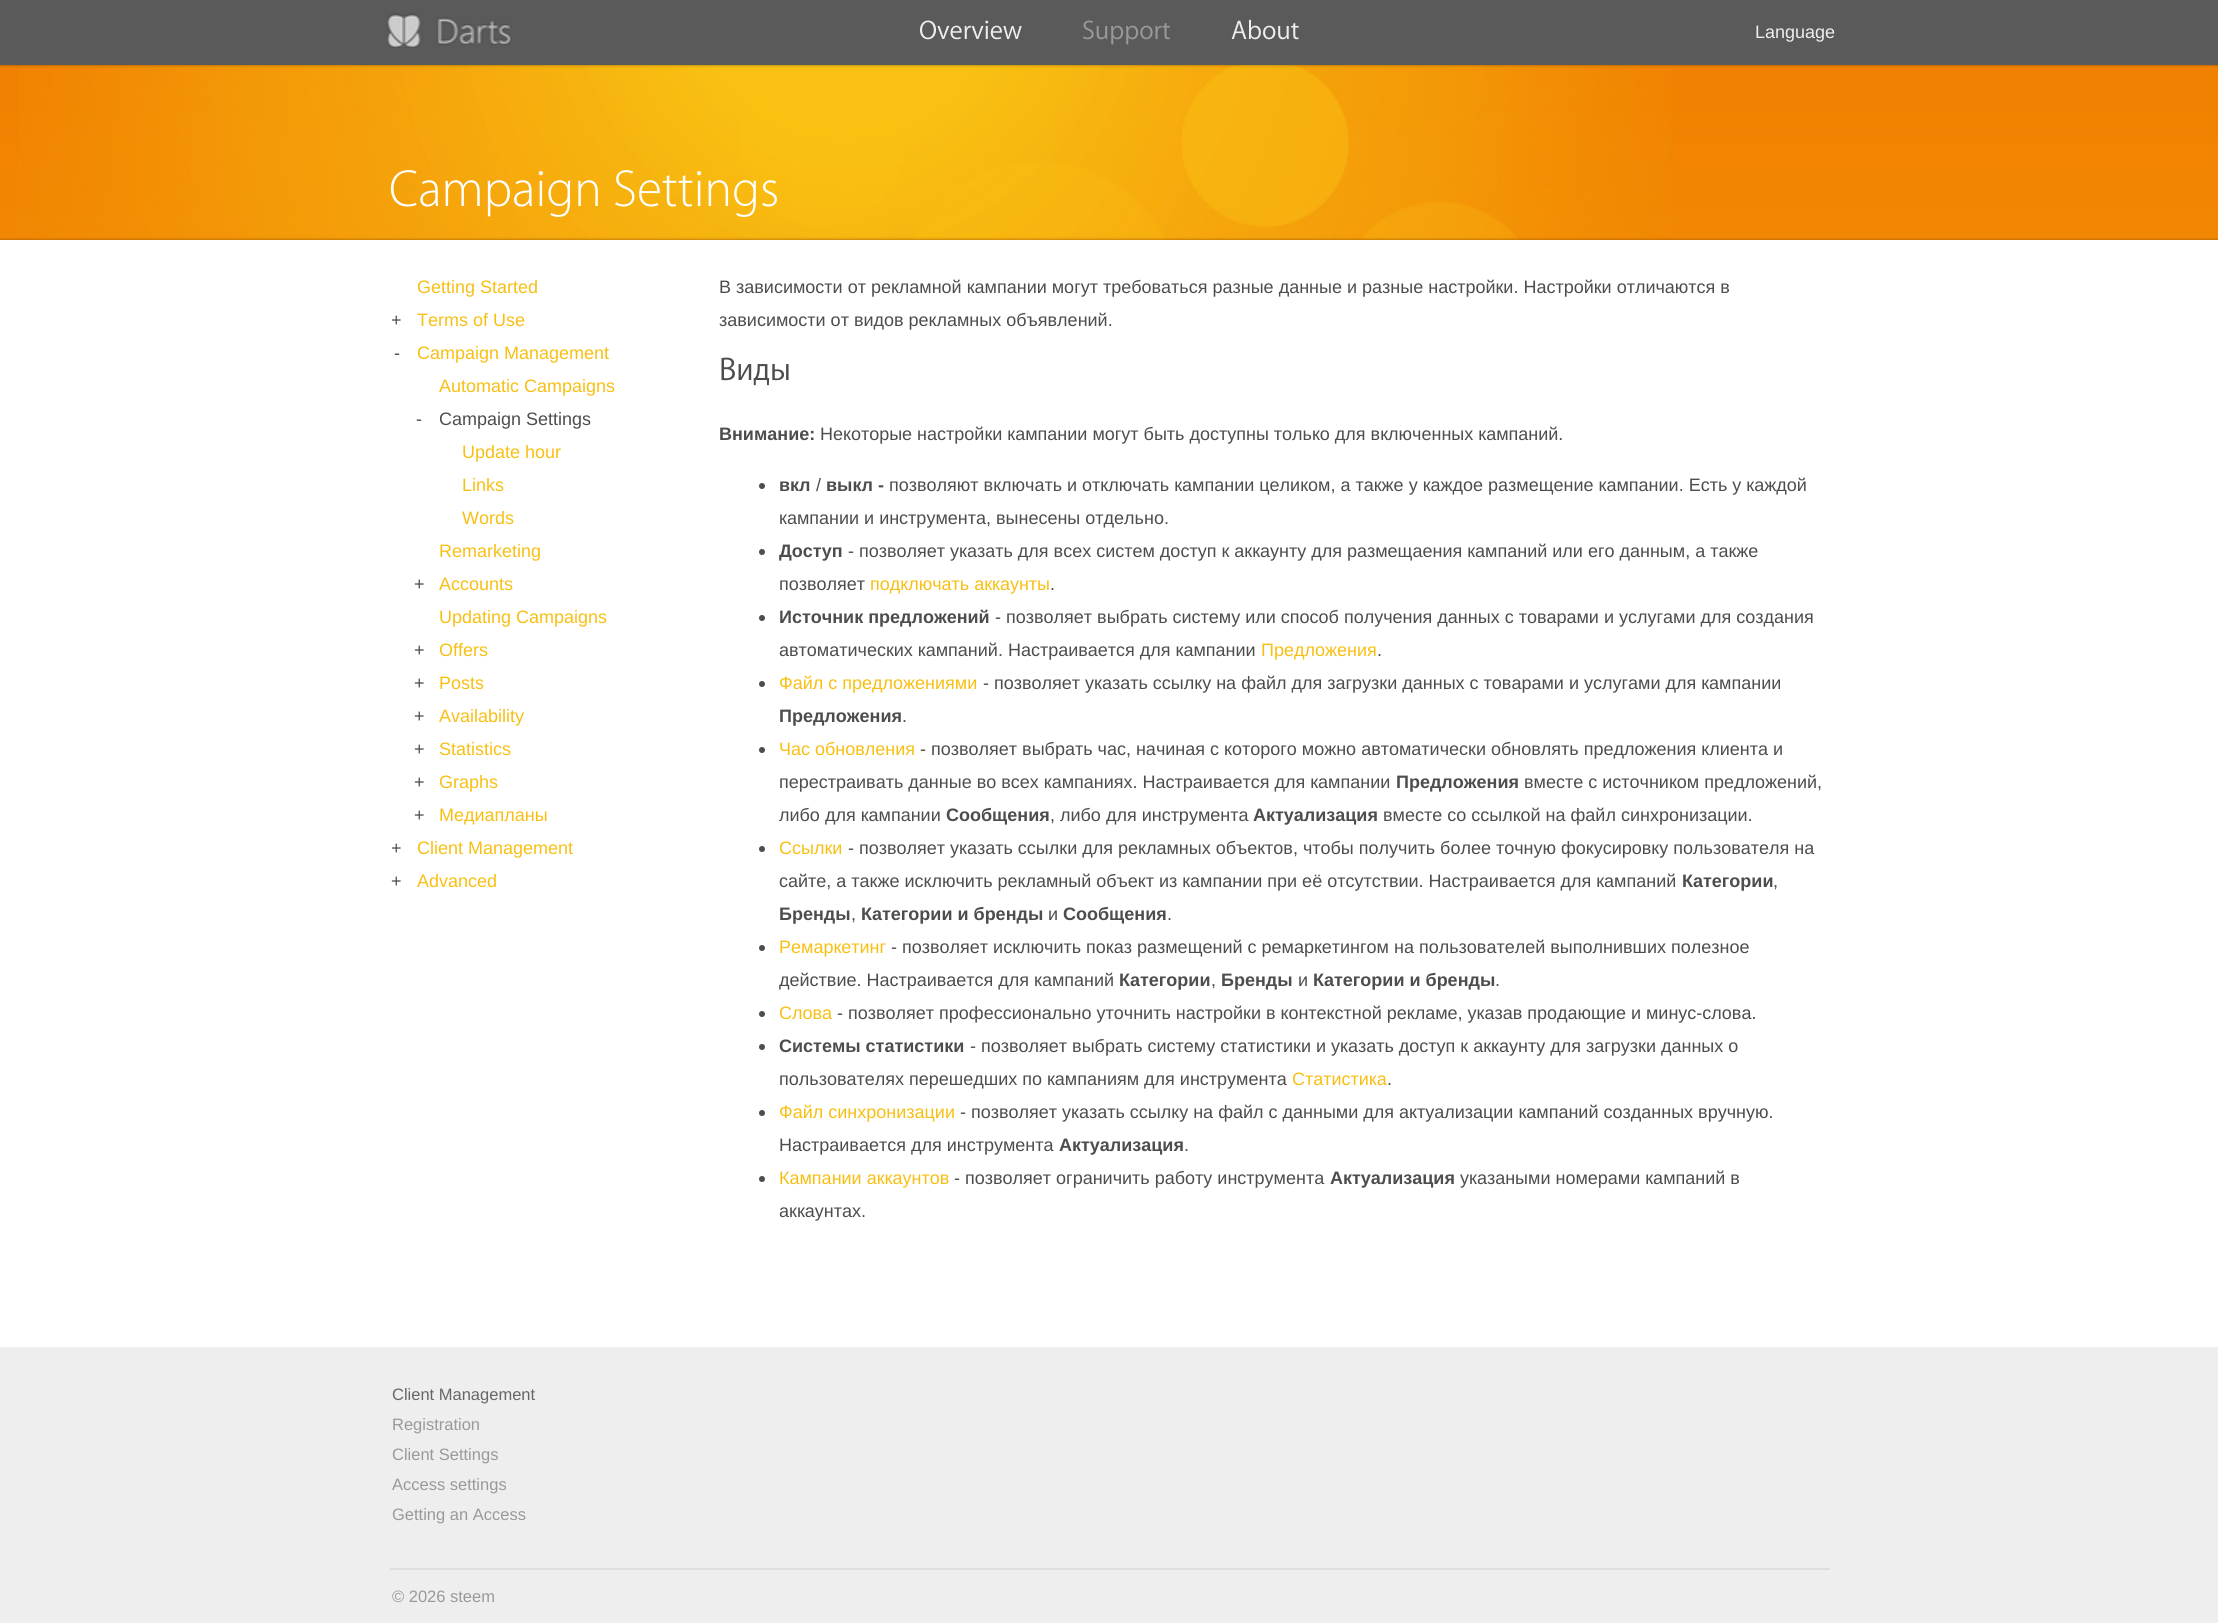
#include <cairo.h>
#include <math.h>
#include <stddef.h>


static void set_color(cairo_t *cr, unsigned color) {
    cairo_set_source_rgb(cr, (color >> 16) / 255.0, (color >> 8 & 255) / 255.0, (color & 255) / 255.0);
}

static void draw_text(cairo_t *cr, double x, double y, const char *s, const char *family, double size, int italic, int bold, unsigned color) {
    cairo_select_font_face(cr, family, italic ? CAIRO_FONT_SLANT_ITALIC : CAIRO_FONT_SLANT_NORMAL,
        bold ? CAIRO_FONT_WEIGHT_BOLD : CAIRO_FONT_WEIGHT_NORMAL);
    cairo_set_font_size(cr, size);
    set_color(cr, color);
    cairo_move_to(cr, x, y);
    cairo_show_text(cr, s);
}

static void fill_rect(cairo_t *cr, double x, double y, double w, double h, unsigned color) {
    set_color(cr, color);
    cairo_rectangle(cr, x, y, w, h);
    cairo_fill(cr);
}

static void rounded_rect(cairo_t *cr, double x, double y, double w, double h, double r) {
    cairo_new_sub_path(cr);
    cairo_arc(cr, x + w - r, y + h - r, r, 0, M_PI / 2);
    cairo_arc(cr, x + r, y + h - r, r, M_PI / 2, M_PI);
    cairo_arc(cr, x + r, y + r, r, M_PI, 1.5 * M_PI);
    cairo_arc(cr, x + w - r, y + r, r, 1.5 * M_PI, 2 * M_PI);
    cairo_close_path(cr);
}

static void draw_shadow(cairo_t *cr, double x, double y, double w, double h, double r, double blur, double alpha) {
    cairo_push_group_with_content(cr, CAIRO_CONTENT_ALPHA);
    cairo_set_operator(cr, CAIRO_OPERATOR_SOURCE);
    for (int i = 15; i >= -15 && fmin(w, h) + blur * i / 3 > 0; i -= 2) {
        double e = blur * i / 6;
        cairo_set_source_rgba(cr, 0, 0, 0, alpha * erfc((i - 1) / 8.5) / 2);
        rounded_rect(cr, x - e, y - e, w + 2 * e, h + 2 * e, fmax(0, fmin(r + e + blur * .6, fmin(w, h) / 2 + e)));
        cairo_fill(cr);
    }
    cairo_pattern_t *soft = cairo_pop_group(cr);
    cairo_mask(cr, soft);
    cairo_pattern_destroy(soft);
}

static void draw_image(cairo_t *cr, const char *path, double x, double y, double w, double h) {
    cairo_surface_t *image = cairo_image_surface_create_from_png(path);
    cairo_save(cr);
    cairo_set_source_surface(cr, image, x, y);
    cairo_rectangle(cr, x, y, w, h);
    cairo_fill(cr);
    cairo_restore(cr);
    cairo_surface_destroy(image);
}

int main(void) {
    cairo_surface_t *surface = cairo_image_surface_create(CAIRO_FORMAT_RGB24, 2218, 1623);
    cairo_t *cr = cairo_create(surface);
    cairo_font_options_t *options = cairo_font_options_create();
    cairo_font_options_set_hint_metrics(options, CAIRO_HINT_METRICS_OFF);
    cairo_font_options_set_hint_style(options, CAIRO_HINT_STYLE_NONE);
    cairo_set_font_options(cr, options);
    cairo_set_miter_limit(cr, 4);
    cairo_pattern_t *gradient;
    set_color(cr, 0xFFFFFF);
    cairo_paint(cr);
    gradient = cairo_pattern_create_linear(1109, 0, 1109, 1623);
    cairo_pattern_add_color_stop_rgba(gradient, 0, 0.945, 0.494, 0, 1);
    cairo_pattern_add_color_stop_rgba(gradient, 1, 0.973, 0.749, 0.075, 1);
    cairo_set_source(cr, gradient);
    cairo_pattern_destroy(gradient);
    cairo_rectangle(cr, 0, 65, 2218, 175);
    cairo_fill(cr);
    draw_image(cr, "assets/img1.png", 18, 65, 1653, 175);
    set_color(cr, 0x000000);
    draw_shadow(cr, 0, 0, 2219, 65, 0, 1.5, 0.4);
    fill_rect(cr, 0, 0, 2218, 65, 0x5A5A5A);
    draw_image(cr, "assets/img2.png", 387, 13, 125, 35);
    draw_text(cr, 919, 39, "Overview", "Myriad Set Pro", 27, 0, 0, 0xEEEEEE);
    draw_text(cr, 1082, 39, "Support", "Myriad Set Pro", 27, 0, 0, 0x999999);
    draw_text(cr, 1231, 39, "About", "Myriad Set Pro", 27, 0, 0, 0xEEEEEE);
    draw_text(cr, 1755, 38, "Language", "Liberation Sans", 18, 0, 0, 0xEEEEEE);
    draw_text(cr, 389, 206, "Campaign Settings", "Myriad Set Pro Thin", 52.5, 0, 0, 0xFFFFFF);
    set_color(cr, 0x9B5200);
    draw_shadow(cr, 0, 240, 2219, 1383, 0, 1.5, 1);
    fill_rect(cr, 0, 240, 2218, 1107, 0xFFFFFF);
    draw_text(cr, 417, 293, "Getting Started", "Liberation Sans", 18, 0, 0, 0xF8BF13);
    draw_text(cr, 391, 326, "+", "Liberation Sans", 18, 0, 0, 0x4D4D4D);
    draw_text(cr, 417, 326, "Terms of Use", "Liberation Sans", 18, 0, 0, 0xF8BF13);
    draw_text(cr, 394, 359, "-", "Liberation Sans", 18, 0, 0, 0x4D4D4D);
    draw_text(cr, 417, 359, "Campaign Management", "Liberation Sans", 18, 0, 0, 0xF8BF13);
    draw_text(cr, 439, 392, "Automatic Campaigns", "Liberation Sans", 18, 0, 0, 0xF8BF13);
    draw_text(cr, 416, 425, "-", "Liberation Sans", 18, 0, 0, 0x4D4D4D);
    draw_text(cr, 439, 425, "Campaign Settings", "Liberation Sans", 18, 0, 0, 0x4D4D4D);
    draw_text(cr, 462, 458, "Update hour", "Liberation Sans", 18, 0, 0, 0xF8BF13);
    draw_text(cr, 462, 491, "Links", "Liberation Sans", 18, 0, 0, 0xF8BF13);
    draw_text(cr, 462, 524, "Words", "Liberation Sans", 18, 0, 0, 0xF8BF13);
    draw_text(cr, 439, 557, "Remarketing", "Liberation Sans", 18, 0, 0, 0xF8BF13);
    draw_text(cr, 414, 590, "+", "Liberation Sans", 18, 0, 0, 0x4D4D4D);
    draw_text(cr, 439, 590, "Accounts", "Liberation Sans", 18, 0, 0, 0xF8BF13);
    draw_text(cr, 439, 623, "Updating Campaigns", "Liberation Sans", 18, 0, 0, 0xF8BF13);
    draw_text(cr, 414, 656, "+", "Liberation Sans", 18, 0, 0, 0x4D4D4D);
    draw_text(cr, 439, 656, "Offers", "Liberation Sans", 18, 0, 0, 0xF8BF13);
    draw_text(cr, 414, 689, "+", "Liberation Sans", 18, 0, 0, 0x4D4D4D);
    draw_text(cr, 439, 689, "Posts", "Liberation Sans", 18, 0, 0, 0xF8BF13);
    draw_text(cr, 414, 722, "+", "Liberation Sans", 18, 0, 0, 0x4D4D4D);
    draw_text(cr, 439, 722, "Availability", "Liberation Sans", 18, 0, 0, 0xF8BF13);
    draw_text(cr, 414, 755, "+", "Liberation Sans", 18, 0, 0, 0x4D4D4D);
    draw_text(cr, 439, 755, "Statistics", "Liberation Sans", 18, 0, 0, 0xF8BF13);
    draw_text(cr, 414, 788, "+", "Liberation Sans", 18, 0, 0, 0x4D4D4D);
    draw_text(cr, 439, 788, "Graphs", "Liberation Sans", 18, 0, 0, 0xF8BF13);
    draw_text(cr, 414, 821, "+", "Liberation Sans", 18, 0, 0, 0x4D4D4D);
    draw_text(cr, 439, 821, "Медиапланы", "Liberation Sans", 18, 0, 0, 0xF8BF13);
    draw_text(cr, 391, 854, "+", "Liberation Sans", 18, 0, 0, 0x4D4D4D);
    draw_text(cr, 417, 854, "Client Management", "Liberation Sans", 18, 0, 0, 0xF8BF13);
    draw_text(cr, 391, 887, "+", "Liberation Sans", 18, 0, 0, 0x4D4D4D);
    draw_text(cr, 417, 887, "Advanced", "Liberation Sans", 18, 0, 0, 0xF8BF13);
    draw_text(cr, 719, 293, "В зависимости от рекламной кампании могут требоваться разные данные и разные настройки. Настройки отличаются в", "Liberation Sans", 18, 0, 0, 0x4D4D4D);
    draw_text(cr, 719, 326, "зависимости от видов рекламных объявлений.", "Liberation Sans", 18, 0, 0, 0x4D4D4D);
    draw_text(cr, 719, 380, "Виды", "Myriad Set Pro", 33, 0, 0, 0x4D4D4D);
    draw_text(cr, 719, 440, "Внимание:", "Liberation Sans", 18, 0, 1, 0x4D4D4D);
    draw_text(cr, 820, 440, "Некоторые настройки кампании могут быть доступны только для включенных кампаний.", "Liberation Sans", 18, 0, 0, 0x4D4D4D);
    cairo_new_path(cr);
    cairo_arc(cr, 762, 486, 3, 0, 2 * M_PI);
    cairo_fill(cr);
    draw_text(cr, 779, 491, "вкл", "Liberation Sans", 18, 0, 1, 0x4D4D4D);
    draw_text(cr, 816, 491, "/", "Liberation Sans", 18, 0, 0, 0x4D4D4D);
    draw_text(cr, 826, 491, "выкл -", "Liberation Sans", 18, 0, 1, 0x4D4D4D);
    draw_text(cr, 889, 491, "позволяют включать и отключать кампании целиком, а также у каждое размещение кампании. Есть у каждой", "Liberation Sans", 18, 0, 0, 0x4D4D4D);
    draw_text(cr, 779, 524, "кампании и инструмента, вынесены отдельно.", "Liberation Sans", 18, 0, 0, 0x4D4D4D);
    cairo_new_path(cr);
    cairo_arc(cr, 762, 552, 3, 0, 2 * M_PI);
    cairo_fill(cr);
    draw_text(cr, 779, 557, "Доступ", "Liberation Sans", 18, 0, 1, 0x4D4D4D);
    draw_text(cr, 848, 557, "- позволяет указать для всех систем доступ к аккаунту для размещаения кампаний или его данным, а также", "Liberation Sans", 18, 0, 0, 0x4D4D4D);
    draw_text(cr, 779, 590, "позволяет", "Liberation Sans", 18, 0, 0, 0x4D4D4D);
    draw_text(cr, 870, 590, "подключать аккаунты", "Liberation Sans", 18, 0, 0, 0xF8BF13);
    draw_text(cr, 1050, 590, ".", "Liberation Sans", 18, 0, 0, 0x4D4D4D);
    cairo_new_path(cr);
    cairo_arc(cr, 762, 618, 3, 0, 2 * M_PI);
    cairo_fill(cr);
    draw_text(cr, 779, 623, "Источник предложений", "Liberation Sans", 18, 0, 1, 0x4D4D4D);
    draw_text(cr, 995, 623, "- позволяет выбрать систему или способ получения данных с товарами и услугами для создания", "Liberation Sans", 18, 0, 0, 0x4D4D4D);
    draw_text(cr, 779, 656, "автоматических кампаний. Настраивается для кампании", "Liberation Sans", 18, 0, 0, 0x4D4D4D);
    draw_text(cr, 1261, 656, "Предложения", "Liberation Sans", 18, 0, 0, 0xF8BF13);
    draw_text(cr, 1377, 656, ".", "Liberation Sans", 18, 0, 0, 0x4D4D4D);
    cairo_new_path(cr);
    cairo_arc(cr, 762, 684, 3, 0, 2 * M_PI);
    cairo_fill(cr);
    draw_text(cr, 779, 689, "Файл с предложениями", "Liberation Sans", 18, 0, 0, 0xF8BF13);
    draw_text(cr, 983, 689, "- позволяет указать ссылку на файл для загрузки данных с товарами и услугами для кампании", "Liberation Sans", 18, 0, 0, 0x4D4D4D);
    draw_text(cr, 779, 722, "Предложения", "Liberation Sans", 18, 0, 1, 0x4D4D4D);
    draw_text(cr, 902, 722, ".", "Liberation Sans", 18, 0, 0, 0x4D4D4D);
    cairo_new_path(cr);
    cairo_arc(cr, 762, 750, 3, 0, 2 * M_PI);
    cairo_fill(cr);
    draw_text(cr, 779, 755, "Час обновления", "Liberation Sans", 18, 0, 0, 0xF8BF13);
    draw_text(cr, 920, 755, "- позволяет выбрать час, начиная с которого можно автоматически обновлять предложения клиента и", "Liberation Sans", 18, 0, 0, 0x4D4D4D);
    draw_text(cr, 779, 788, "перестраивать данные во всех кампаниях. Настраивается для кампании", "Liberation Sans", 18, 0, 0, 0x4D4D4D);
    draw_text(cr, 1396, 788, "Предложения", "Liberation Sans", 18, 0, 1, 0x4D4D4D);
    draw_text(cr, 1524, 788, "вместе с источником предложений,", "Liberation Sans", 18, 0, 0, 0x4D4D4D);
    draw_text(cr, 779, 821, "либо для кампании", "Liberation Sans", 18, 0, 0, 0x4D4D4D);
    draw_text(cr, 946, 821, "Сообщения", "Liberation Sans", 18, 0, 1, 0x4D4D4D);
    draw_text(cr, 1050, 821, ", либо для инструмента", "Liberation Sans", 18, 0, 0, 0x4D4D4D);
    draw_text(cr, 1253, 821, "Актуализация", "Liberation Sans", 18, 0, 1, 0x4D4D4D);
    draw_text(cr, 1383, 821, "вместе со ссылкой на файл синхронизации.", "Liberation Sans", 18, 0, 0, 0x4D4D4D);
    cairo_new_path(cr);
    cairo_arc(cr, 762, 849, 3, 0, 2 * M_PI);
    cairo_fill(cr);
    draw_text(cr, 779, 854, "Ссылки", "Liberation Sans", 18, 0, 0, 0xF8BF13);
    draw_text(cr, 848, 854, "- позволяет указать ссылки для рекламных объектов, чтобы получить более точную фокусировку пользователя на", "Liberation Sans", 18, 0, 0, 0x4D4D4D);
    draw_text(cr, 779, 887, "сайте, а также исключить рекламный объект из кампании при её отсутствии. Настраивается для кампаний", "Liberation Sans", 18, 0, 0, 0x4D4D4D);
    draw_text(cr, 1682, 887, "Категории", "Liberation Sans", 18, 0, 1, 0x4D4D4D);
    draw_text(cr, 1773, 887, ",", "Liberation Sans", 18, 0, 0, 0x4D4D4D);
    draw_text(cr, 779, 920, "Бренды", "Liberation Sans", 18, 0, 1, 0x4D4D4D);
    draw_text(cr, 861, 920, "Категории и бренды", "Liberation Sans", 18, 0, 1, 0x4D4D4D);
    draw_text(cr, 1048, 920, "и", "Liberation Sans", 18, 0, 0, 0x4D4D4D);
    draw_text(cr, 1063, 920, "Сообщения", "Liberation Sans", 18, 0, 1, 0x4D4D4D);
    draw_text(cr, 851, 920, ",", "Liberation Sans", 18, 0, 0, 0x4D4D4D);
    draw_text(cr, 1167, 920, ".", "Liberation Sans", 18, 0, 0, 0x4D4D4D);
    cairo_new_path(cr);
    cairo_arc(cr, 762, 948, 3, 0, 2 * M_PI);
    cairo_fill(cr);
    draw_text(cr, 779, 953, "Ремаркетинг", "Liberation Sans", 18, 0, 0, 0xF8BF13);
    draw_text(cr, 891, 953, "- позволяет исключить показ размещений с ремаркетингом на пользователей выполнивших полезное", "Liberation Sans", 18, 0, 0, 0x4D4D4D);
    draw_text(cr, 779, 986, "действие. Настраивается для кампаний", "Liberation Sans", 18, 0, 0, 0x4D4D4D);
    draw_text(cr, 1119, 986, "Категории", "Liberation Sans", 18, 0, 1, 0x4D4D4D);
    draw_text(cr, 1221, 986, "Бренды", "Liberation Sans", 18, 0, 1, 0x4D4D4D);
    draw_text(cr, 1298, 986, "и", "Liberation Sans", 18, 0, 0, 0x4D4D4D);
    draw_text(cr, 1313, 986, "Категории и бренды", "Liberation Sans", 18, 0, 1, 0x4D4D4D);
    draw_text(cr, 1211, 986, ",", "Liberation Sans", 18, 0, 0, 0x4D4D4D);
    draw_text(cr, 1495, 986, ".", "Liberation Sans", 18, 0, 0, 0x4D4D4D);
    cairo_new_path(cr);
    cairo_arc(cr, 762, 1014, 3, 0, 2 * M_PI);
    cairo_fill(cr);
    draw_text(cr, 779, 1019, "Слова", "Liberation Sans", 18, 0, 0, 0xF8BF13);
    draw_text(cr, 837, 1019, "- позволяет профессионально уточнить настройки в контекстной рекламе, указав продающие и минус-слова.", "Liberation Sans", 18, 0, 0, 0x4D4D4D);
    cairo_new_path(cr);
    cairo_arc(cr, 762, 1047, 3, 0, 2 * M_PI);
    cairo_fill(cr);
    draw_text(cr, 779, 1052, "Системы статистики", "Liberation Sans", 18, 0, 1, 0x4D4D4D);
    draw_text(cr, 970, 1052, "- позволяет выбрать систему статистики и указать доступ к аккаунту для загрузки данных о", "Liberation Sans", 18, 0, 0, 0x4D4D4D);
    draw_text(cr, 779, 1085, "пользователях перешедших по кампаниям для инструмента", "Liberation Sans", 18, 0, 0, 0x4D4D4D);
    draw_text(cr, 1292, 1085, "Статистика", "Liberation Sans", 18, 0, 0, 0xF8BF13);
    draw_text(cr, 1387, 1085, ".", "Liberation Sans", 18, 0, 0, 0x4D4D4D);
    cairo_new_path(cr);
    cairo_arc(cr, 762, 1113, 3, 0, 2 * M_PI);
    cairo_fill(cr);
    draw_text(cr, 779, 1118, "Файл синхронизации", "Liberation Sans", 18, 0, 0, 0xF8BF13);
    draw_text(cr, 960, 1118, "- позволяет указать ссылку на файл с данными для актуализации кампаний созданных вручную.", "Liberation Sans", 18, 0, 0, 0x4D4D4D);
    draw_text(cr, 779, 1151, "Настраивается для инструмента", "Liberation Sans", 18, 0, 0, 0x4D4D4D);
    draw_text(cr, 1059, 1151, "Актуализация", "Liberation Sans", 18, 0, 1, 0x4D4D4D);
    draw_text(cr, 1184, 1151, ".", "Liberation Sans", 18, 0, 0, 0x4D4D4D);
    cairo_new_path(cr);
    cairo_arc(cr, 762, 1179, 3, 0, 2 * M_PI);
    cairo_fill(cr);
    draw_text(cr, 779, 1184, "Кампании аккаунтов", "Liberation Sans", 18, 0, 0, 0xF8BF13);
    draw_text(cr, 954, 1184, "- позволяет ограничить работу инструмента", "Liberation Sans", 18, 0, 0, 0x4D4D4D);
    draw_text(cr, 1330, 1184, "Актуализация", "Liberation Sans", 18, 0, 1, 0x4D4D4D);
    draw_text(cr, 1460, 1184, "указаными номерами кампаний в", "Liberation Sans", 18, 0, 0, 0x4D4D4D);
    draw_text(cr, 779, 1217, "аккаунтах.", "Liberation Sans", 18, 0, 0, 0x4D4D4D);
    fill_rect(cr, 0, 1347, 2218, 276, 0xEEEEEE);
    draw_text(cr, 392, 1400, "Client Management", "Liberation Sans", 16.5, 0, 0, 0x666666);
    draw_text(cr, 392, 1430, "Registration", "Liberation Sans", 16.5, 0, 0, 0x999999);
    draw_text(cr, 392, 1460, "Client Settings", "Liberation Sans", 16.5, 0, 0, 0x999999);
    draw_text(cr, 392, 1490, "Access settings", "Liberation Sans", 16.5, 0, 0, 0x999999);
    draw_text(cr, 392, 1520, "Getting an Access", "Liberation Sans", 16.5, 0, 0, 0x999999);
    fill_rect(cr, 390, 1568, 1440, 2, 0xDDDDDD);
    draw_text(cr, 392, 1602, "© 2026 steem", "Liberation Sans", 16.5, 0, 0, 0x999999);
    cairo_surface_write_to_png(surface, "output.png");
    cairo_font_options_destroy(options);
    cairo_destroy(cr);
    cairo_surface_destroy(surface);
    return 0;
}
